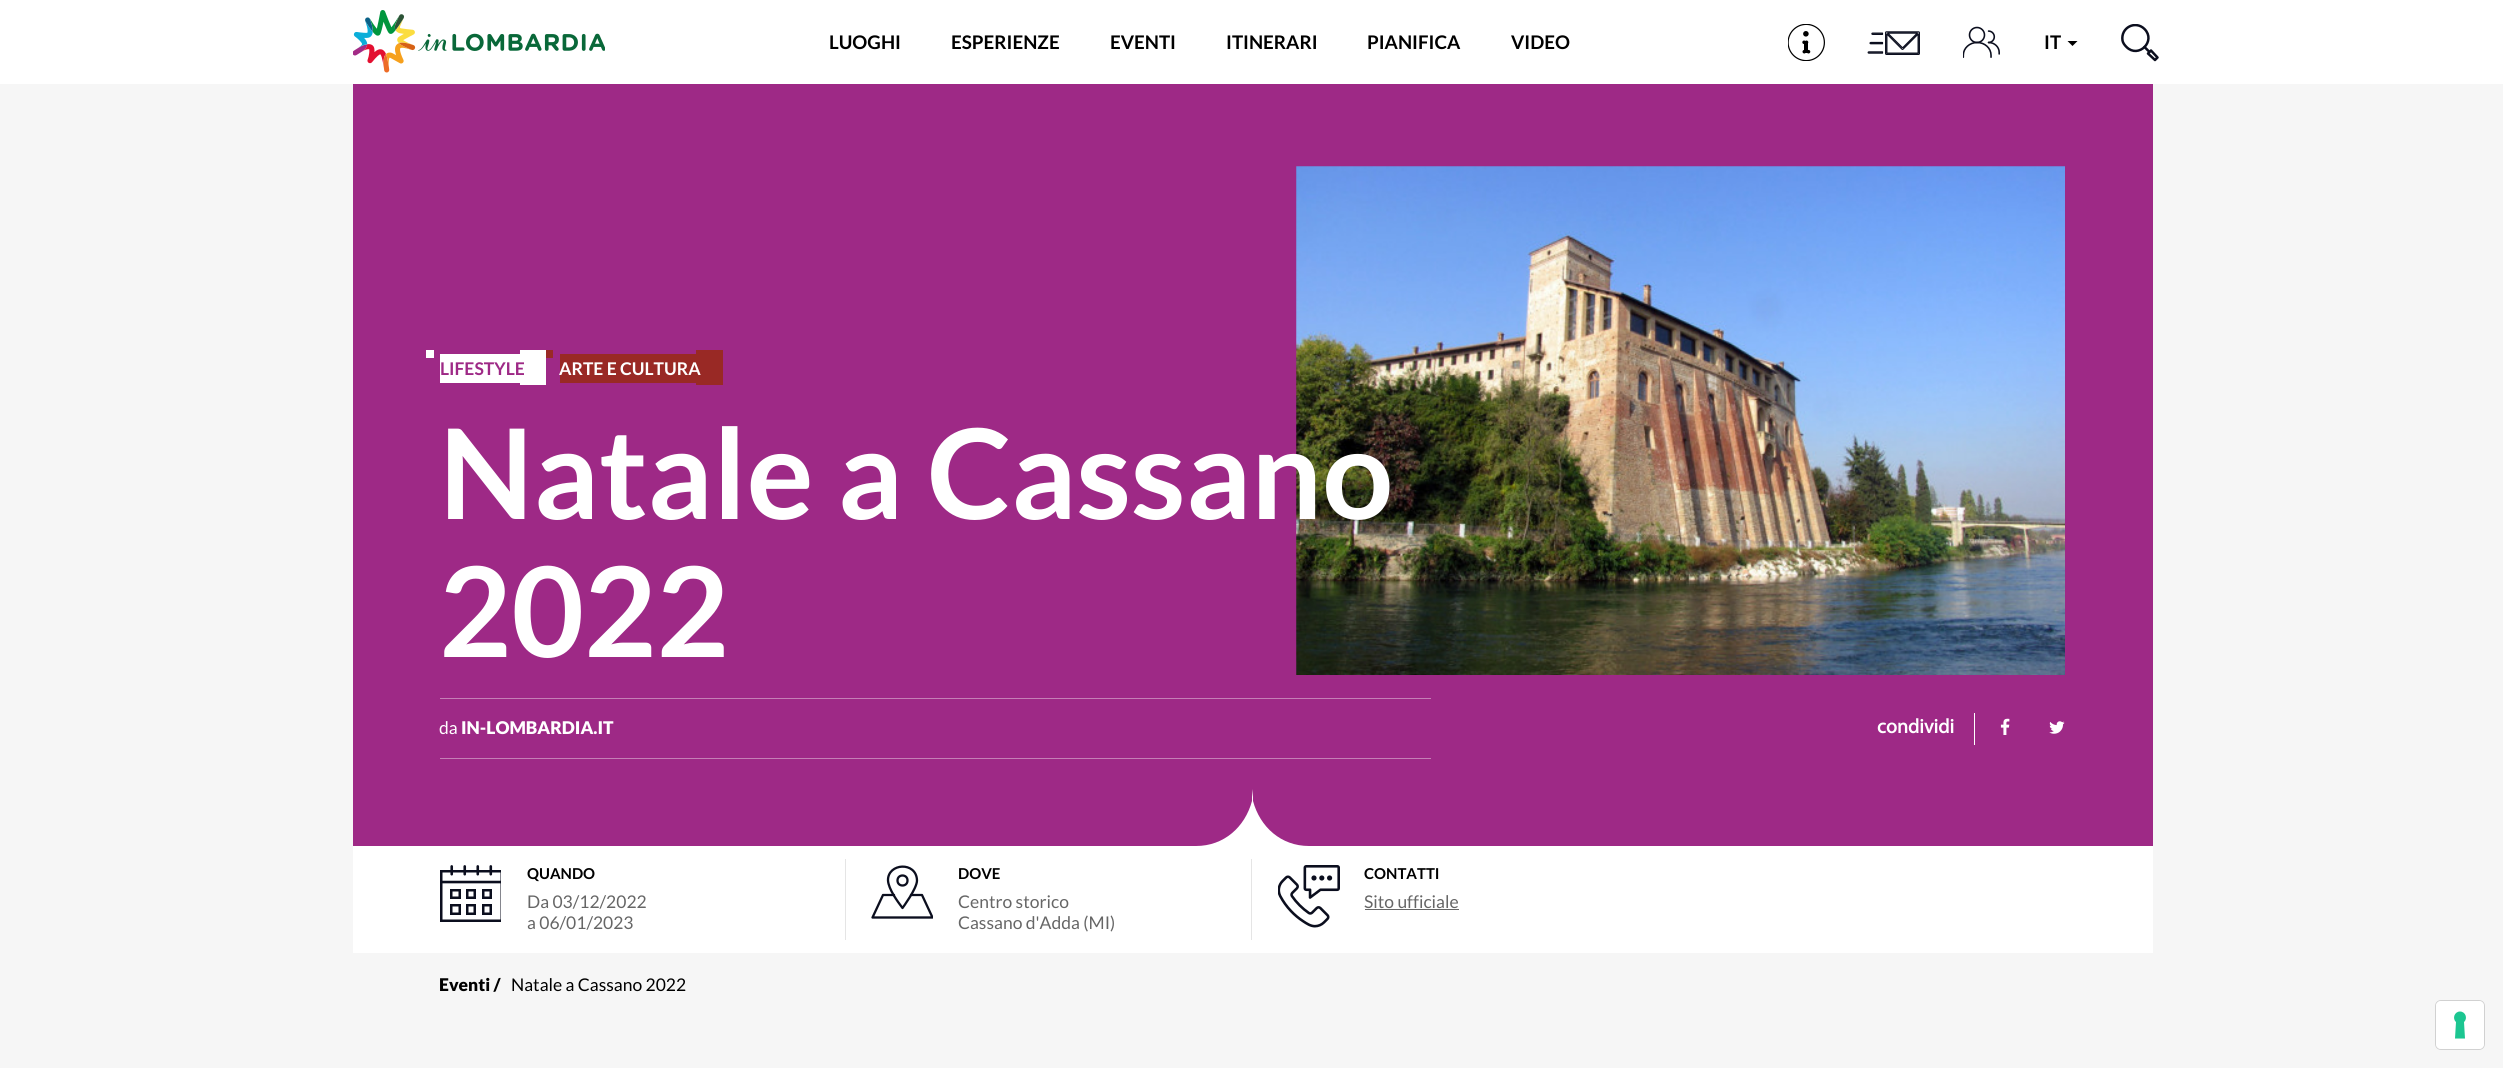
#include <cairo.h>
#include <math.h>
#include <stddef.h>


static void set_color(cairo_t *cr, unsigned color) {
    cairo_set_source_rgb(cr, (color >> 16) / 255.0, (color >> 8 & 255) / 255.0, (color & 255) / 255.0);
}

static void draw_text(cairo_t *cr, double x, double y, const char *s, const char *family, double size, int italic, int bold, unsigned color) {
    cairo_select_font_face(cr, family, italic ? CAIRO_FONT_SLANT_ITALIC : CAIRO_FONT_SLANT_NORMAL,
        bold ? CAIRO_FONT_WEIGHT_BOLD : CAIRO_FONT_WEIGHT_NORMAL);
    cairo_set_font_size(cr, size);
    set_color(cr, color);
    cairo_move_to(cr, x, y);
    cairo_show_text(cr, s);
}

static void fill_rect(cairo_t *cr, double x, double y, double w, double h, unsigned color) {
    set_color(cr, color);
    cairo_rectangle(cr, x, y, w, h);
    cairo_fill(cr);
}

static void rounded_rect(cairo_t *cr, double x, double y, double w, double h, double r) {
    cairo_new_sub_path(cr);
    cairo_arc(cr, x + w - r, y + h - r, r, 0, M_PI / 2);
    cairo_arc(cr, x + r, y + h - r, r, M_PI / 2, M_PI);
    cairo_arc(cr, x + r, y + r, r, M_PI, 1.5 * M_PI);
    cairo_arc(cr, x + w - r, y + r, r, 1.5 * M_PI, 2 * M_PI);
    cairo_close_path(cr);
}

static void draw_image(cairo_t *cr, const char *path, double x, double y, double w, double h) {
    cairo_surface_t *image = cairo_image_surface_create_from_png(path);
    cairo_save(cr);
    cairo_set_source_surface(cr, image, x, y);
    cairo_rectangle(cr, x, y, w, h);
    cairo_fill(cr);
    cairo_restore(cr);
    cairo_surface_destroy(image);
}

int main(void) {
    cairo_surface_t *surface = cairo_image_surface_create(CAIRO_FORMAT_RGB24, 2503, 1068);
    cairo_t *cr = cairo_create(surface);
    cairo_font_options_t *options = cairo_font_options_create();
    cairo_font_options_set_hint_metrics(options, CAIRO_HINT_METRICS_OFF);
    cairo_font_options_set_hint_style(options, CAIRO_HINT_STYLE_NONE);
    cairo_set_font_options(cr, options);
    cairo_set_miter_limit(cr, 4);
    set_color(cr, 0xF6F6F6);
    cairo_paint(cr);
    fill_rect(cr, 0, 0, 2503, 84, 0xFFFFFF);
    draw_image(cr, "assets/img1.png", 353, 10, 252, 63);
    draw_text(cr, 829, 49, "LUOGHI", "Lato", 18.75, 0, 1, 0x000000);
    draw_text(cr, 951, 49, "ESPERIENZE", "Lato", 18.75, 0, 1, 0x000000);
    draw_text(cr, 1110, 49, "EVENTI", "Lato", 18.75, 0, 1, 0x000000);
    draw_text(cr, 1226, 49, "ITINERARI", "Lato", 18.75, 0, 1, 0x000000);
    draw_text(cr, 1367, 49, "PIANIFICA", "Lato", 18.75, 0, 1, 0x000000);
    draw_text(cr, 1511, 49, "VIDEO", "Lato", 18.75, 0, 1, 0x000000);
    draw_image(cr, "assets/img2.png", 1788, 24, 37, 37);
    draw_image(cr, "assets/img3.png", 1867, 31, 53, 24);
    draw_image(cr, "assets/img4.png", 1963, 26, 37, 32);
    draw_text(cr, 2044, 49, "IT", "Lato", 18.75, 0, 1, 0x000000);
    cairo_new_path(cr);
    cairo_move_to(cr, 2067.5, 41);
    cairo_line_to(cr, 2077.5, 41);
    cairo_line_to(cr, 2072.5, 46);
    cairo_close_path(cr);
    cairo_fill(cr);
    cairo_save(cr);
    cairo_rectangle(cr, 2121, 24, 38, 37);
    cairo_clip(cr);
    cairo_new_path(cr);
    cairo_move_to(cr, 2144.5, 29);
    cairo_curve_to(cr, 2156.5, 41, 2138.5, 59, 2126.5, 47);
    cairo_curve_to(cr, 2124.5, 45, 2123, 43, 2122.5, 40.5);
    cairo_curve_to(cr, 2120.5, 27.5, 2135.5, 20, 2144.5, 29);
    cairo_close_path(cr);
    set_color(cr, 0x0B0E1E);
    cairo_set_line_width(cr, 2.5);
    cairo_set_line_cap(cr, CAIRO_LINE_CAP_ROUND);
    cairo_set_line_join(cr, CAIRO_LINE_JOIN_ROUND);
    cairo_stroke(cr);
    cairo_restore(cr);
    cairo_new_path(cr);
    cairo_move_to(cr, 2144.5, 47);
    cairo_line_to(cr, 2149.5, 52);
    cairo_move_to(cr, 2157.5, 57.5);
    cairo_line_to(cr, 2155, 60);
    cairo_line_to(cr, 2148, 53.5);
    cairo_line_to(cr, 2151, 50.5);
    cairo_close_path(cr);
    set_color(cr, 0x0B0E1E);
    cairo_set_line_width(cr, 2.5);
    cairo_set_line_cap(cr, CAIRO_LINE_CAP_ROUND);
    cairo_set_line_join(cr, CAIRO_LINE_JOIN_ROUND);
    cairo_stroke(cr);
    fill_rect(cr, 353, 84, 1800, 762, 0x9E2986);
    fill_rect(cr, 440, 354, 80, 29, 0xFFFFFF);
    fill_rect(cr, 520, 350, 26, 35, 0xFFFFFF);
    draw_text(cr, 440, 375, "LIFESTYLE", "Lato", 17.5, 0, 1, 0x9E2986);
    fill_rect(cr, 426, 350, 8, 8, 0xFFFFFF);
    fill_rect(cr, 560, 354, 136, 29, 0x992925);
    fill_rect(cr, 696, 350, 27, 35, 0x992925);
    draw_text(cr, 559, 375, "ARTE E CULTURA", "Lato", 17.5, 0, 1, 0xFFFFFF);
    fill_rect(cr, 546, 350, 7, 8, 0x992925);
    draw_image(cr, "assets/img5.png", 1296, 166, 769, 509);
    draw_text(cr, 439, 519, "Natale a Cassano", "Lato", 125, 0, 1, 0xFFFFFF);
    draw_text(cr, 439, 657, "2022", "Lato", 125, 0, 1, 0xFFFFFF);
    fill_rect(cr, 440, 698, 991, 1, 0xC57FB6);
    fill_rect(cr, 440, 758, 991, 1, 0xC57FB6);
    draw_text(cr, 439, 734, "da", "Lato", 17.5, 0, 0, 0xFFFFFF);
    draw_text(cr, 461, 734, "IN-LOMBARDIA.IT", "Lato Black", 17.5, 0, 0, 0xFFFFFF);
    fill_rect(cr, 1974, 713, 1, 32, 0xFFFFFF);
    draw_text(cr, 1877, 733, "condividi", "Myriad", 20, 0, 1, 0xFFFFFF);
    draw_image(cr, "assets/img6.png", 2000, 718, 10, 17);
    draw_image(cr, "assets/img7.png", 2049, 721, 16, 13);
    fill_rect(cr, 353, 846, 1800, 107, 0xFFFFFF);
    cairo_set_fill_rule(cr, CAIRO_FILL_RULE_EVEN_ODD);
    cairo_new_path(cr);
    cairo_move_to(cr, 1253, 846);
    cairo_line_to(cr, 1196, 846);
    cairo_curve_to(cr, 1224, 846, 1245, 827, 1252, 801);
    cairo_line_to(cr, 1252, 789);
    cairo_line_to(cr, 1252, 797);
    cairo_line_to(cr, 1253, 789);
    cairo_line_to(cr, 1253, 801);
    cairo_curve_to(cr, 1260, 827, 1281, 846, 1309, 846);
    cairo_close_path(cr);
    cairo_fill(cr);
    draw_image(cr, "assets/img8.png", 440, 865, 61, 57);
    draw_text(cr, 527, 879, "QUANDO", "Lato", 15, 0, 1, 0x000000);
    draw_text(cr, 527, 908, "Da 03/12/2022", "Lato", 17.5, 0, 0, 0x666666);
    draw_text(cr, 527, 929, "a 06/01/2023", "Lato", 17.5, 0, 0, 0x666666);
    fill_rect(cr, 845, 859, 1, 81, 0xE5E5E5);
    cairo_new_path(cr);
    cairo_move_to(cr, 917, 880.5);
    cairo_curve_to(cr, 917, 888.5, 902.5, 908, 902.5, 908);
    cairo_curve_to(cr, 897.5, 901.5, 888.5, 889, 888, 880.5);
    cairo_curve_to(cr, 887.5, 863, 916.5, 861, 917, 880.5);
    cairo_close_path(cr);
    set_color(cr, 0x0B0E1E);
    cairo_set_line_width(cr, 2.3);
    cairo_stroke(cr);
    cairo_arc(cr, 902.5, 880.5, 5, 0, 2 * M_PI);
    cairo_set_line_cap(cr, CAIRO_LINE_CAP_BUTT);
    cairo_set_line_join(cr, CAIRO_LINE_JOIN_MITER);
    cairo_stroke(cr);
    cairo_save(cr);
    cairo_set_fill_rule(cr, CAIRO_FILL_RULE_WINDING);
    cairo_rectangle(cr, 871, 865, 62, 54);
    cairo_clip(cr);
    cairo_new_path(cr);
    cairo_move_to(cr, 911, 895);
    cairo_line_to(cr, 922, 895);
    cairo_line_to(cr, 932.5, 917.5);
    cairo_line_to(cr, 872.5, 917.5);
    cairo_line_to(cr, 883, 895);
    cairo_line_to(cr, 894, 895);
    cairo_set_line_cap(cr, CAIRO_LINE_CAP_ROUND);
    cairo_set_line_join(cr, CAIRO_LINE_JOIN_ROUND);
    cairo_stroke(cr);
    cairo_restore(cr);
    draw_text(cr, 958, 879, "DOVE", "Lato", 15, 0, 1, 0x000000);
    draw_text(cr, 958, 908, "Centro storico", "Lato", 17.5, 0, 0, 0x666666);
    draw_text(cr, 958, 929, "Cassano d'Adda (MI)", "Lato", 17.5, 0, 0, 0x666666);
    fill_rect(cr, 1251, 859, 1, 81, 0xE5E5E5);
    draw_image(cr, "assets/img9.png", 1278, 865, 62, 63);
    draw_text(cr, 1364, 879, "CONTATTI", "Lato", 15, 0, 1, 0x000000);
    draw_text(cr, 1364, 908, "Sito ufficiale", "Lato", 17.5, 0, 0, 0x666666);
    fill_rect(cr, 1365, 909, 94, 1, 0x666666);
    draw_text(cr, 439, 991, "Eventi /", "Lato Black", 17.5, 0, 0, 0x000000);
    draw_text(cr, 511, 991, "Natale a Cassano 2022", "Lato", 17.5, 0, 0, 0x000000);
    rounded_rect(cr, 2435.5, 1000.5, 49, 49, 5.5);
    set_color(cr, 0xD1D1D1);
    cairo_set_line_width(cr, 1);
    cairo_stroke(cr);
    set_color(cr, 0xFFFFFF);
    rounded_rect(cr, 2436, 1001, 48, 48, 5);
    cairo_fill(cr);
    set_color(cr, 0x1CC691);
    cairo_new_path(cr);
    cairo_move_to(cr, 2460, 1011.5);
    cairo_curve_to(cr, 2465.5, 1011.5, 2468, 1018.5, 2464, 1022);
    cairo_line_to(cr, 2465, 1038.5);
    cairo_line_to(cr, 2455, 1038.5);
    cairo_line_to(cr, 2456, 1022);
    cairo_curve_to(cr, 2452, 1018.5, 2454.5, 1011.5, 2460, 1011.5);
    cairo_close_path(cr);
    cairo_fill(cr);
    cairo_surface_write_to_png(surface, "output.png");
    cairo_font_options_destroy(options);
    cairo_destroy(cr);
    cairo_surface_destroy(surface);
    return 0;
}
